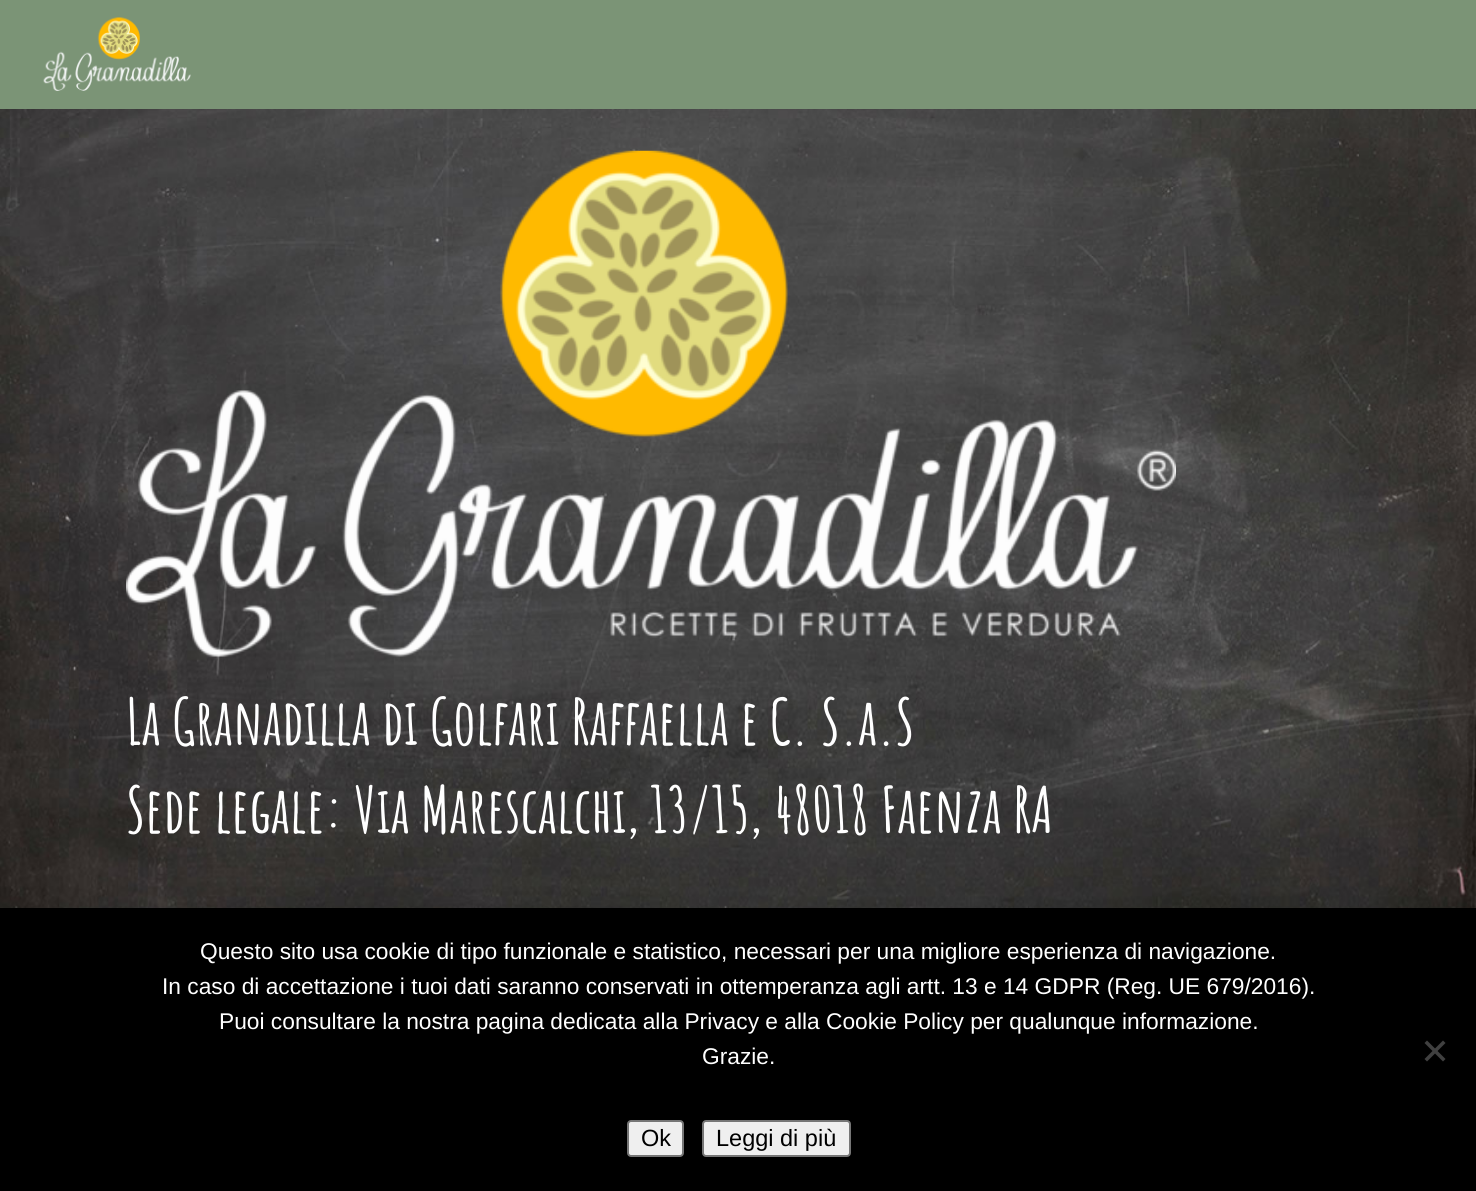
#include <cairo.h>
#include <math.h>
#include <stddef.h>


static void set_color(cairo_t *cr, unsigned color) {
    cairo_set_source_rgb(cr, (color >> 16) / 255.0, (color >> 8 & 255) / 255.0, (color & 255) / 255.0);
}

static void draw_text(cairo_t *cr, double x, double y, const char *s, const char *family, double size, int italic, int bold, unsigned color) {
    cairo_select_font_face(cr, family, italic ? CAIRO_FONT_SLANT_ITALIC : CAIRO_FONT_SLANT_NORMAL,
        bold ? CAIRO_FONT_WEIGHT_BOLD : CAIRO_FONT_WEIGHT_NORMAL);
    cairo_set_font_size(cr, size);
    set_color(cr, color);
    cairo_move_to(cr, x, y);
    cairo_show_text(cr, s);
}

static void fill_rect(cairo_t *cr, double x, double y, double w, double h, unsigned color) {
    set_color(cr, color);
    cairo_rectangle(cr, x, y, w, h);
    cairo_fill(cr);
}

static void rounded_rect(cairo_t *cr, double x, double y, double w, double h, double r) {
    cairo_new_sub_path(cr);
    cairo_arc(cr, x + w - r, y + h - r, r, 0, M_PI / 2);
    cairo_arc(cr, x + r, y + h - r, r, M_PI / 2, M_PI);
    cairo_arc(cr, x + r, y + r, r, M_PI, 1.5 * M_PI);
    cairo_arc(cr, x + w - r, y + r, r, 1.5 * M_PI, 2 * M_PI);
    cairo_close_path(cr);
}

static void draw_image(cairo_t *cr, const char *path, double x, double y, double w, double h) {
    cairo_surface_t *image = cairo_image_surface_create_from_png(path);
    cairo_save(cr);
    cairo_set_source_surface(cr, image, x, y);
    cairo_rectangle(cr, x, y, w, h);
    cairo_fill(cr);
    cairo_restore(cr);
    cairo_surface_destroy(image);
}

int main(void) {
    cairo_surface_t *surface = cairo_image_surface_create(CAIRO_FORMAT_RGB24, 1476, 1191);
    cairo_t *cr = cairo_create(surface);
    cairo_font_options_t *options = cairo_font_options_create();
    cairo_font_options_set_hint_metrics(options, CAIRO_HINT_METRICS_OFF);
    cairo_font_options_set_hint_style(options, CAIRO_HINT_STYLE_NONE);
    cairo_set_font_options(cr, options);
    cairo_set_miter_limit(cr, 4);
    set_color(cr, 0xFFFFFF);
    cairo_paint(cr);
    fill_rect(cr, 0, 0, 1476, 109, 0x7B9476);
    draw_image(cr, "assets/img1.png", 43, 17, 148, 74);
    draw_image(cr, "assets/img2.png", 0, 109, 1476, 799);
    draw_image(cr, "assets/img3.png", 126, 150, 1050, 507);
    draw_text(cr, 126, 745, "La Granadilla di Golfari Raffaella e C. S.a.S", "Amatic SC", 63, 0, 1, 0xFFFFFF);
    draw_text(cr, 126, 833, "Sede legale: Via Marescalchi, 13/15, 48018 Faenza RA", "Amatic SC", 63, 0, 1, 0xFFFFFF);
    fill_rect(cr, 0, 908, 1476, 283, 0x000000);
    draw_text(cr, 200, 959, "Questo sito usa cookie di tipo funzionale e statistico, necessari per una migliore esperienza di navigazione.", "Liberation Sans", 22.75, 0, 0, 0xFFFFFF);
    draw_text(cr, 162, 994, "In caso di accettazione i tuoi dati saranno conservati in ottemperanza agli artt. 13 e 14 GDPR (Reg. UE 679/2016).", "Liberation Sans", 22.75, 0, 0, 0xFFFFFF);
    draw_text(cr, 219, 1029, "Puoi consultare la nostra pagina dedicata alla Privacy e alla Cookie Policy per qualunque informazione.", "Liberation Sans", 22.75, 0, 0, 0xFFFFFF);
    draw_text(cr, 702, 1064, "Grazie.", "Liberation Sans", 22.75, 0, 0, 0xFFFFFF);
    set_color(cr, 0x404040);
    cairo_new_path(cr);
    cairo_move_to(cr, 1443, 1040.5);
    cairo_line_to(cr, 1445.5, 1043);
    cairo_line_to(cr, 1427, 1061.5);
    cairo_line_to(cr, 1424.5, 1059);
    cairo_close_path(cr);
    cairo_fill(cr);
    cairo_new_path(cr);
    cairo_move_to(cr, 1424.5, 1043);
    cairo_line_to(cr, 1427, 1040.5);
    cairo_line_to(cr, 1445.5, 1059);
    cairo_line_to(cr, 1443, 1061.5);
    cairo_close_path(cr);
    cairo_fill(cr);
    set_color(cr, 0xEFEFEF);
    rounded_rect(cr, 628, 1121, 55, 35, 3);
    cairo_fill_preserve(cr);
    set_color(cr, 0x767676);
    cairo_stroke(cr);
    draw_text(cr, 641, 1146, "Ok", "Liberation Sans", 23.5, 0, 0, 0x000000);
    set_color(cr, 0xEFEFEF);
    rounded_rect(cr, 703, 1121, 147, 35, 3);
    cairo_fill_preserve(cr);
    set_color(cr, 0x767676);
    cairo_stroke(cr);
    draw_text(cr, 716, 1146, "Leggi di più", "Liberation Sans", 23.5, 0, 0, 0x000000);
    cairo_surface_write_to_png(surface, "output.png");
    cairo_font_options_destroy(options);
    cairo_destroy(cr);
    cairo_surface_destroy(surface);
    return 0;
}
